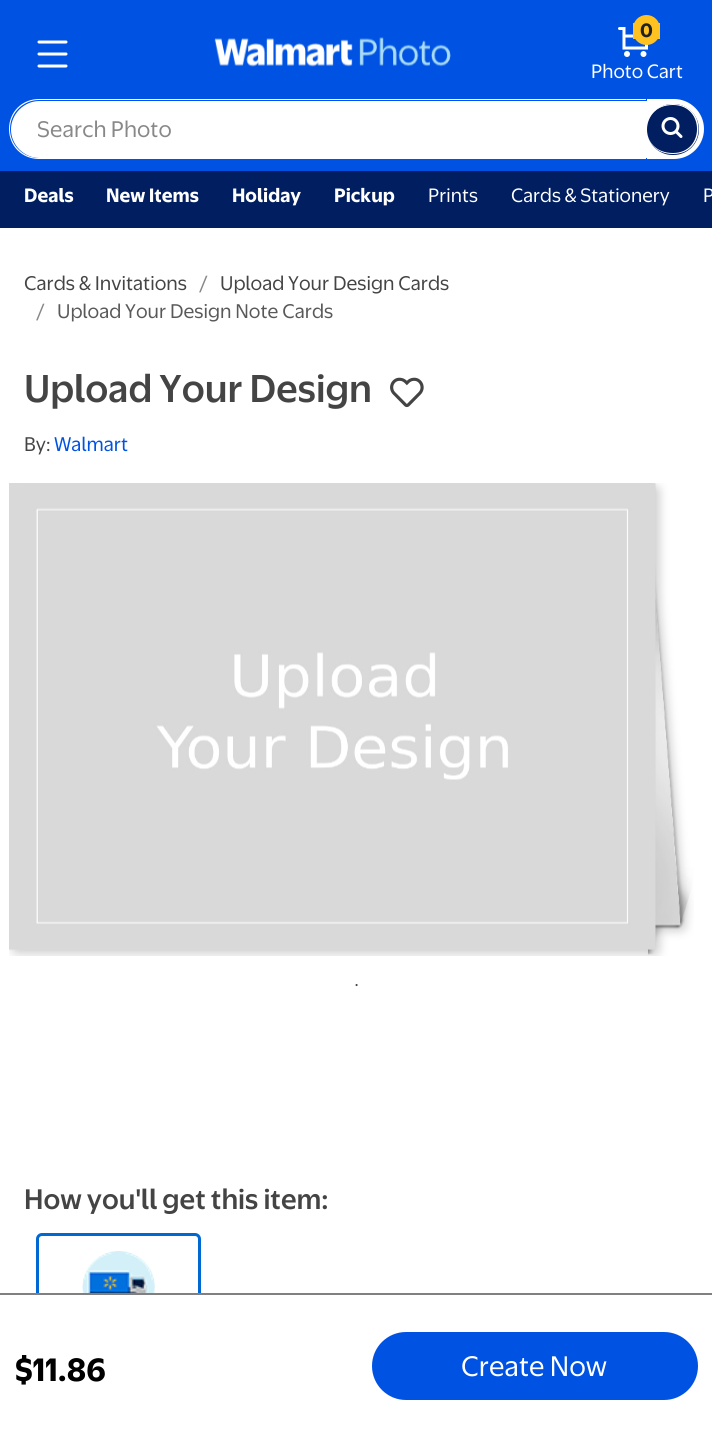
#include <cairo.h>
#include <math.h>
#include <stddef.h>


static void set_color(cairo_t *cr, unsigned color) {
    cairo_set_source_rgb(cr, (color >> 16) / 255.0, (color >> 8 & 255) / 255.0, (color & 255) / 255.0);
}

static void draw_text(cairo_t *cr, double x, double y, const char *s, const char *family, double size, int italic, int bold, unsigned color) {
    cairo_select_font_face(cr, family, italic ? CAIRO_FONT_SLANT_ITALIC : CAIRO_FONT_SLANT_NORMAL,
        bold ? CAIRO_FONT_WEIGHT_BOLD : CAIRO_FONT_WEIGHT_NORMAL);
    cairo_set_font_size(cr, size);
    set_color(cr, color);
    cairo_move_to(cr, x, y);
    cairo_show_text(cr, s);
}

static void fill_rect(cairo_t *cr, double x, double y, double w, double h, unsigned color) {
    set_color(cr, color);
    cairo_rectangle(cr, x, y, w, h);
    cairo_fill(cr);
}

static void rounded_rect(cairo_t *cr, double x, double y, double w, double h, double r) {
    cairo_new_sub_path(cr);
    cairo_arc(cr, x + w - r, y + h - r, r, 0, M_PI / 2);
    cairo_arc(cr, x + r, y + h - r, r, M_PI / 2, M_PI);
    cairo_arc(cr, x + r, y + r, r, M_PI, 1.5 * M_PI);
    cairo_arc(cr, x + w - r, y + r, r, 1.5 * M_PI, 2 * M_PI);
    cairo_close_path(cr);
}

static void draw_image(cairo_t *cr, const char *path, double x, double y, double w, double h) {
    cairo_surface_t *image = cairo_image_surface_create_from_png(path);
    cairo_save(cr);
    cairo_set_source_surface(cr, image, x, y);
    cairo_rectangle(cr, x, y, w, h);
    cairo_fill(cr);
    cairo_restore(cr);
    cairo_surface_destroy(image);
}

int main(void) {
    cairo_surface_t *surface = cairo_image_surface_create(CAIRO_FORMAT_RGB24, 712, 1436);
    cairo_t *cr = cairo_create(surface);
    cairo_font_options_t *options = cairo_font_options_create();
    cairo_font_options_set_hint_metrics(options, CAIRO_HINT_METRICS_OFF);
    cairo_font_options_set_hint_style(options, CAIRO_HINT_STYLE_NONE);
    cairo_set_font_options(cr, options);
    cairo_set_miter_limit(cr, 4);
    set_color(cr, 0xFFFFFF);
    cairo_paint(cr);
    fill_rect(cr, 0, 0, 712, 171, 0x0053E2);
    draw_image(cr, "assets/img1.png", 37, 40, 31, 28);
    draw_image(cr, "assets/img2.png", 214, 37, 237, 30);
    draw_image(cr, "assets/img3.png", 618, 27, 30, 30);
    set_color(cr, 0xFFC220);
    rounded_rect(cr, 633, 15, 27, 30, 13.5);
    cairo_fill(cr);
    fill_rect(cr, 657, 23, 3, 16, 0xFFC220);
    fill_rect(cr, 633, 23, 3, 16, 0xFFC220);
    draw_text(cr, 640, 37, "0", "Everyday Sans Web", 18, 0, 1, 0x222222);
    draw_text(cr, 591, 78, "Photo Cart", "Everyday Sans Web", 18, 0, 0, 0xFFFFFF);
    cairo_new_path(cr);
    cairo_move_to(cr, 647, 99);
    cairo_line_to(cr, 674, 99);
    cairo_curve_to(cr, 690.5, 99, 704, 112.5, 704, 129);
    cairo_curve_to(cr, 704, 145.5, 690.5, 159, 674, 159);
    cairo_line_to(cr, 647, 159);
    cairo_close_path(cr);
    cairo_fill(cr);
    set_color(cr, 0x001E60);
    rounded_rect(cr, 647, 104, 52, 51, 25.5);
    cairo_fill(cr);
    set_color(cr, 0xFFFFFF);
    cairo_set_fill_rule(cr, CAIRO_FILL_RULE_EVEN_ODD);
    cairo_new_path(cr);
    cairo_move_to(cr, 673, 104);
    cairo_curve_to(cr, 707, 104, 707, 154, 673, 154);
    cairo_curve_to(cr, 638, 154, 638, 104, 673, 104);
    cairo_close_path(cr);
    cairo_move_to(cr, 673, 105);
    cairo_curve_to(cr, 705, 105, 705, 153, 673, 153);
    cairo_curve_to(cr, 638, 153, 638, 105, 673, 105);
    cairo_close_path(cr);
    cairo_fill(cr);
    cairo_new_path(cr);
    cairo_move_to(cr, 39.5, 101);
    cairo_line_to(cr, 647, 101);
    cairo_line_to(cr, 647, 158);
    cairo_line_to(cr, 39.5, 158);
    cairo_curve_to(cr, 24, 158, 11, 145, 11, 129.5);
    cairo_curve_to(cr, 11, 114, 24, 101, 39.5, 101);
    cairo_close_path(cr);
    cairo_fill(cr);
    cairo_new_path(cr);
    cairo_move_to(cr, 39, 99);
    cairo_line_to(cr, 646, 99);
    cairo_line_to(cr, 646, 159);
    cairo_line_to(cr, 39, 159);
    cairo_curve_to(cr, 22, 159, 9, 146, 9, 129);
    cairo_curve_to(cr, 9, 112, 22, 99, 39, 99);
    cairo_close_path(cr);
    cairo_move_to(cr, 39, 100);
    cairo_line_to(cr, 646, 100);
    cairo_line_to(cr, 646, 158);
    cairo_line_to(cr, 39, 158);
    cairo_curve_to(cr, 23, 158, 10, 145, 10, 129);
    cairo_curve_to(cr, 10, 113, 23, 100, 39, 100);
    cairo_close_path(cr);
    cairo_fill(cr);
    draw_text(cr, 37, 137, "Search Photo", "Everyday Sans Web", 21, 0, 0, 0x888888);
    draw_image(cr, "assets/img4.png", 661, 117, 22, 21);
    fill_rect(cr, 0, 171, 712, 57, 0x001E60);
    draw_text(cr, 24, 202, "Deals", "Everyday Sans Web", 18, 0, 1, 0xFFFFFF);
    draw_text(cr, 106, 202, "New Items", "Everyday Sans Web", 18, 0, 1, 0xFFFFFF);
    draw_text(cr, 232, 202, "Holiday", "Everyday Sans Web", 18, 0, 1, 0xFFFFFF);
    draw_text(cr, 334, 202, "Pickup", "Everyday Sans Web", 18, 0, 1, 0xFFFFFF);
    draw_text(cr, 428, 202, "Prints", "Everyday Sans Web", 18, 0, 0, 0xFFFFFF);
    draw_text(cr, 511, 202, "Cards & Stationery", "Everyday Sans Web", 18, 0, 0, 0xFFFFFF);
    draw_text(cr, 703, 202, "P", "Everyday Sans Web", 18, 0, 0, 0xFFFFFF);
    draw_text(cr, 24, 290, "Cards & Invitations", "Everyday Sans Web", 18.4, 0, 0, 0x444444);
    draw_text(cr, 199, 290, "/", "Everyday Sans Web", 18.4, 0, 0, 0x888888);
    draw_text(cr, 220, 290, "Upload Your Design Cards", "Everyday Sans Web", 18.4, 0, 0, 0x444444);
    draw_text(cr, 36, 318, "/", "Everyday Sans Web", 18.4, 0, 0, 0x888888);
    draw_text(cr, 57, 318, "Upload Your Design Note Cards", "Everyday Sans Web", 18.4, 0, 0, 0x595959);
    draw_text(cr, 24, 402, "Upload Your Design", "Everyday Sans Web Medium", 36, 0, 0, 0x444444);
    draw_image(cr, "assets/img5.png", 390, 377, 34, 31);
    draw_text(cr, 24, 451, "By:", "Everyday Sans Web", 18.4, 0, 0, 0x444444);
    draw_text(cr, 54, 451, "Walmart", "Everyday Sans Web", 18.4, 0, 0, 0x0053E2);
    draw_image(cr, "assets/img6.png", 9, 483, 685, 473);
    draw_text(cr, 355, 988, "•", "Liberation Serif", 9, 0, 0, 0x444444);
    draw_text(cr, 24, 1209, "How you'll get this item:", "Everyday Sans Web Medium", 26.25, 0, 0, 0x444444);
    rounded_rect(cr, 37.5, 1234.5, 162, 162, 4.5);
    set_color(cr, 0x0068D2);
    cairo_set_line_width(cr, 3);
    cairo_stroke(cr);
    set_color(cr, 0xE9F8FC);
    cairo_arc(cr, 119, 1287, 36, 0, 2 * M_PI);
    cairo_fill(cr);
    draw_image(cr, "assets/img7.png", 82, 1251, 73, 42);
    fill_rect(cr, 36, 1295, 165, 103, 0xFFFFFF);
    fill_rect(cr, 0, 1293, 712, 2, 0x808080);
    draw_text(cr, 15, 1381, "$11.86", "Everyday Sans Web", 30, 0, 1, 0x000000);
    set_color(cr, 0x0053E2);
    rounded_rect(cr, 373, 1333, 324, 66, 33);
    cairo_fill_preserve(cr);
    cairo_set_line_width(cr, 2);
    cairo_stroke(cr);
    draw_text(cr, 461, 1376, "Create Now", "Everyday Sans Web", 26.25, 0, 0, 0xFFFFFF);
    cairo_surface_write_to_png(surface, "output.png");
    cairo_font_options_destroy(options);
    cairo_destroy(cr);
    cairo_surface_destroy(surface);
    return 0;
}
